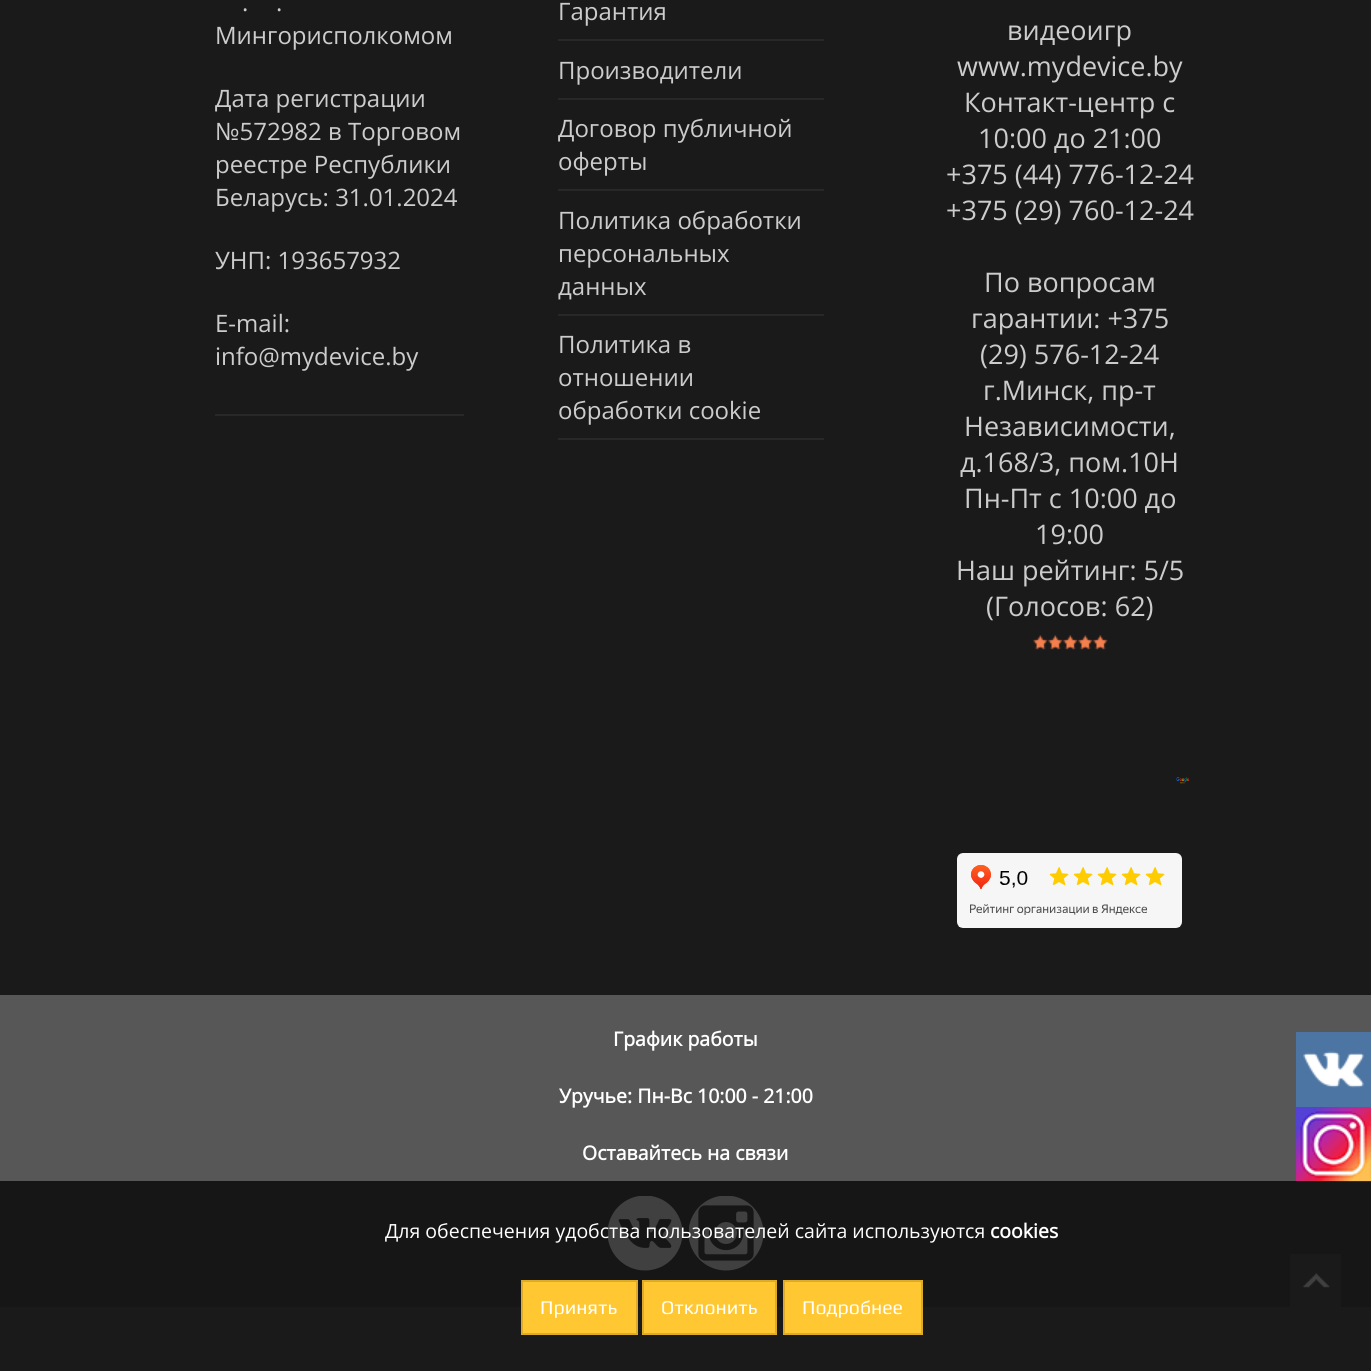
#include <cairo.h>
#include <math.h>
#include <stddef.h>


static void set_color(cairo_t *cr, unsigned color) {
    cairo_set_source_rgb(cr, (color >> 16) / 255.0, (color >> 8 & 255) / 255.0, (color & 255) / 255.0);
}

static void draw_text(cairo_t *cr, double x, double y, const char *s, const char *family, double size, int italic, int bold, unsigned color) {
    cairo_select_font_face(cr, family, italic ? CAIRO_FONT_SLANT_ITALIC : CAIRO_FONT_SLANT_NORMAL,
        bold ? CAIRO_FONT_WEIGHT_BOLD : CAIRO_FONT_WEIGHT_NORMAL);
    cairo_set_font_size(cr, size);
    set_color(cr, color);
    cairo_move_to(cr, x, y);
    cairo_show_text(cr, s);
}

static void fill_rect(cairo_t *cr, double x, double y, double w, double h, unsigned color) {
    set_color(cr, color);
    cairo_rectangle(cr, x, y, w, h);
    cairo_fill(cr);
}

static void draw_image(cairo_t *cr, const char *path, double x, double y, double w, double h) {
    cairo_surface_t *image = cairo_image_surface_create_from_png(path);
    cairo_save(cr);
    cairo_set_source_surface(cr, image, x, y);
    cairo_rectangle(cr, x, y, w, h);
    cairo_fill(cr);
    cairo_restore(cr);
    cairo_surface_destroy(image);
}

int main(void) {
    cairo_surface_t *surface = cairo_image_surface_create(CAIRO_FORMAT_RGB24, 1371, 1371);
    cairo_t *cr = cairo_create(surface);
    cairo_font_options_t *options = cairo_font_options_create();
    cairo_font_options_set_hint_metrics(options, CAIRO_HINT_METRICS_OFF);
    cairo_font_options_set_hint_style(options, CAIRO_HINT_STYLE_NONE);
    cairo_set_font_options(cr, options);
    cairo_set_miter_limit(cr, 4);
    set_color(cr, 0x575757);
    cairo_paint(cr);
    fill_rect(cr, 0, 0, 1371, 995, 0x1A1A1A);
    fill_rect(cr, 215, 414, 249, 2, 0x282828);
    draw_text(cr, 242, 11, ".", "Open Sans", 24, 0, 0, 0xCCCCCC);
    draw_text(cr, 276, 11, ".", "Open Sans", 24, 0, 0, 0xCCCCCC);
    draw_text(cr, 215, 44, "Мингорисполкомом", "Open Sans", 24, 0, 0, 0xCCCCCC);
    draw_text(cr, 215, 107, "Дата регистрации", "Open Sans", 24, 0, 0, 0xCCCCCC);
    draw_text(cr, 215, 140, "№572982 в Торговом", "Open Sans", 24, 0, 0, 0xCCCCCC);
    draw_text(cr, 215, 173, "реестре Республики", "Open Sans", 24, 0, 0, 0xCCCCCC);
    draw_text(cr, 215, 206, "Беларусь: 31.01.2024", "Open Sans", 24, 0, 0, 0xCCCCCC);
    draw_text(cr, 215, 269, "УНП: 193657932", "Open Sans", 24, 0, 0, 0xCCCCCC);
    draw_text(cr, 215, 332, "E-mail:", "Open Sans", 24, 0, 0, 0xCCCCCC);
    draw_text(cr, 215, 365, "info@mydevice.by", "Open Sans", 24, 0, 0, 0xCCCCCC);
    fill_rect(cr, 558, 39, 266, 2, 0x282828);
    draw_text(cr, 558, 20, "Гарантия", "Open Sans", 24, 0, 0, 0xCCCCCC);
    fill_rect(cr, 558, 98, 266, 2, 0x282828);
    draw_text(cr, 558, 79, "Производители", "Open Sans", 24, 0, 0, 0xCCCCCC);
    fill_rect(cr, 558, 189, 266, 2, 0x282828);
    draw_text(cr, 558, 137, "Договор публичной", "Open Sans", 24, 0, 0, 0xCCCCCC);
    draw_text(cr, 558, 170, "оферты", "Open Sans", 24, 0, 0, 0xCCCCCC);
    fill_rect(cr, 558, 314, 266, 2, 0x282828);
    draw_text(cr, 558, 229, "Политика обработки", "Open Sans", 24, 0, 0, 0xCCCCCC);
    draw_text(cr, 558, 262, "персональных", "Open Sans", 24, 0, 0, 0xCCCCCC);
    draw_text(cr, 558, 295, "данных", "Open Sans", 24, 0, 0, 0xCCCCCC);
    fill_rect(cr, 558, 438, 266, 2, 0x282828);
    draw_text(cr, 558, 353, "Политика в", "Open Sans", 24, 0, 0, 0xCCCCCC);
    draw_text(cr, 558, 386, "отношении", "Open Sans", 24, 0, 0, 0xCCCCCC);
    draw_text(cr, 558, 419, "обработки cookie", "Open Sans", 24, 0, 0, 0xCCCCCC);
    draw_text(cr, 1007, 40, "видеоигр", "Open Sans", 27, 0, 0, 0xCCCCCC);
    draw_text(cr, 957, 76, "www.mydevice.by", "Open Sans", 27, 0, 0, 0xCCCCCC);
    draw_text(cr, 964, 112, "Контакт-центр с", "Open Sans", 27, 0, 0, 0xCCCCCC);
    draw_text(cr, 978, 148, "10:00 до 21:00", "Open Sans", 27, 0, 0, 0xCCCCCC);
    draw_text(cr, 946, 184, "+375 (44) 776-12-24", "Open Sans", 27, 0, 0, 0xCCCCCC);
    draw_text(cr, 946, 220, "+375 (29) 760-12-24", "Open Sans", 27, 0, 0, 0xCCCCCC);
    draw_text(cr, 984, 292, "По вопросам", "Open Sans", 27, 0, 0, 0xCCCCCC);
    draw_text(cr, 971, 328, "гарантии: +375", "Open Sans", 27, 0, 0, 0xCCCCCC);
    draw_text(cr, 980, 364, "(29) 576-12-24", "Open Sans", 27, 0, 0, 0xCCCCCC);
    draw_text(cr, 983, 400, "г.Минск, пр-т", "Open Sans", 27, 0, 0, 0xCCCCCC);
    draw_text(cr, 964, 436, "Независимости,", "Open Sans", 27, 0, 0, 0xCCCCCC);
    draw_text(cr, 960, 472, "д.168/3, пом.10Н", "Open Sans", 27, 0, 0, 0xCCCCCC);
    draw_text(cr, 964, 508, "Пн-Пт c 10:00 до", "Open Sans", 27, 0, 0, 0xCCCCCC);
    draw_text(cr, 1035, 544, "19:00", "Open Sans", 27, 0, 0, 0xCCCCCC);
    draw_text(cr, 956, 580, "Наш рейтинг: 5/5", "Open Sans", 27, 0, 0, 0xCCCCCC);
    draw_text(cr, 986, 616, "(Голосов: 62)", "Open Sans", 27, 0, 0, 0xCCCCCC);
    draw_image(cr, "assets/img1.png", 1033, 635, 75, 15);
    draw_image(cr, "assets/img2.png", 1176, 777, 14, 7);
    draw_image(cr, "assets/img3.png", 957, 853, 225, 75);
    draw_text(cr, 613, 1046, "График работы", "Open Sans", 19.5, 0, 1, 0xFFFFFF);
    draw_text(cr, 559, 1103, "Уручье: Пн-Вс 10:00 - 21:00", "Open Sans", 19.5, 0, 1, 0xFFFFFF);
    draw_text(cr, 582, 1160, "Оставайтесь на связи", "Open Sans", 19.5, 0, 1, 0xFFFFFF);
    draw_image(cr, "assets/img4.png", 608, 1196, 75, 75);
    draw_image(cr, "assets/img5.png", 689, 1196, 75, 75);
    draw_image(cr, "assets/img6.png", 1296, 1032, 75, 75);
    draw_image(cr, "assets/img7.png", 1296, 1107, 75, 75);
    fill_rect(cr, 0, 1307, 1371, 64, 0x666666);
    fill_rect(cr, 1290, 1254, 51, 53, 0x666666);
    draw_image(cr, "assets/img8.png", 1303, 1273, 27, 15);
    cairo_set_source_rgba(cr, 0, 0, 0, 0.75);
    cairo_rectangle(cr, 0, 1181, 1371, 190);
    cairo_fill(cr);
    draw_text(cr, 385, 1238, "Для обеспечения удобства пользователей сайта используются", "Open Sans", 19.5, 0, 0, 0xFFFFFF);
    draw_text(cr, 990, 1238, "cookies", "Open Sans", 19.5, 0, 1, 0xFFFFFF);
    set_color(cr, 0xFFC732);
    cairo_rectangle(cr, 522, 1281, 115, 53);
    cairo_fill_preserve(cr);
    set_color(cr, 0xDCAB27);
    cairo_stroke(cr);
    draw_text(cr, 540, 1314, "Принять", "Play", 19.5, 0, 0, 0xFFFFFF);
    set_color(cr, 0xFFC732);
    cairo_rectangle(cr, 643, 1281, 133, 53);
    cairo_fill_preserve(cr);
    set_color(cr, 0xDCAB27);
    cairo_stroke(cr);
    draw_text(cr, 661, 1314, "Отклонить", "Play", 19.5, 0, 0, 0xFFFFFF);
    set_color(cr, 0xFFC732);
    cairo_rectangle(cr, 784, 1281, 138, 53);
    cairo_fill_preserve(cr);
    set_color(cr, 0xDCAB27);
    cairo_stroke(cr);
    draw_text(cr, 802, 1314, "Подробнее", "Play", 19.5, 0, 0, 0xFFFFFF);
    cairo_surface_write_to_png(surface, "output.png");
    cairo_font_options_destroy(options);
    cairo_destroy(cr);
    cairo_surface_destroy(surface);
    return 0;
}
